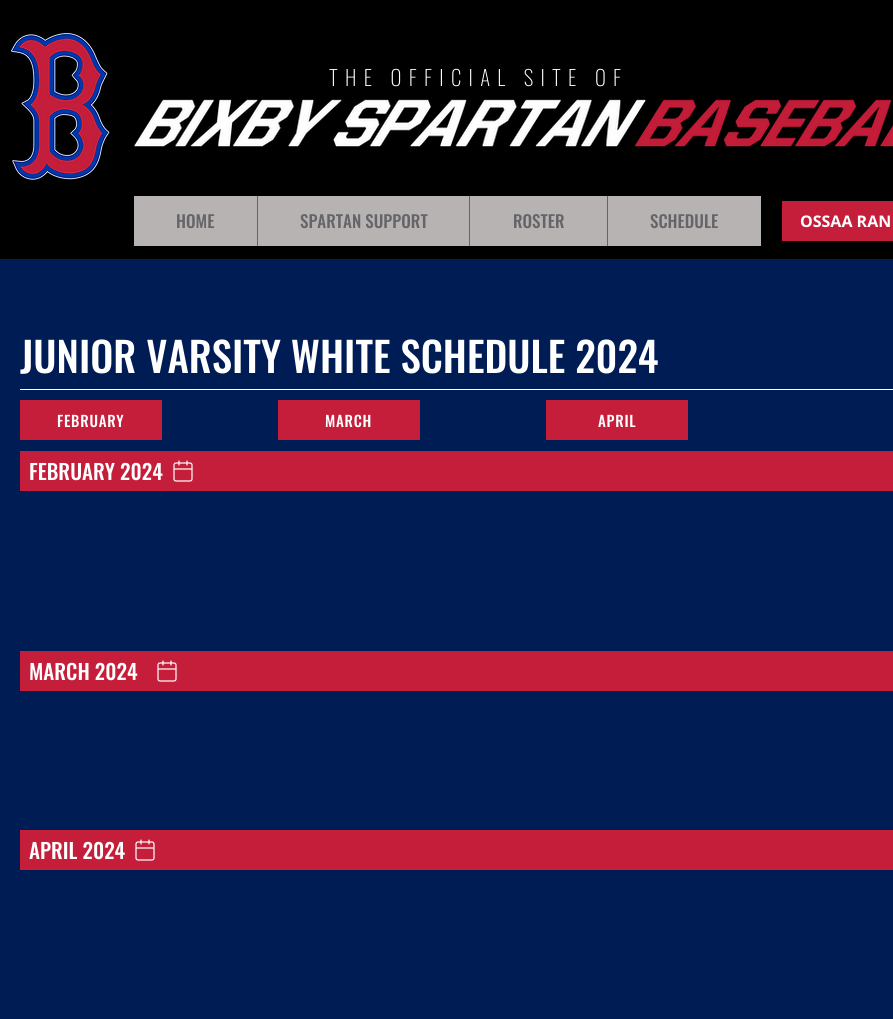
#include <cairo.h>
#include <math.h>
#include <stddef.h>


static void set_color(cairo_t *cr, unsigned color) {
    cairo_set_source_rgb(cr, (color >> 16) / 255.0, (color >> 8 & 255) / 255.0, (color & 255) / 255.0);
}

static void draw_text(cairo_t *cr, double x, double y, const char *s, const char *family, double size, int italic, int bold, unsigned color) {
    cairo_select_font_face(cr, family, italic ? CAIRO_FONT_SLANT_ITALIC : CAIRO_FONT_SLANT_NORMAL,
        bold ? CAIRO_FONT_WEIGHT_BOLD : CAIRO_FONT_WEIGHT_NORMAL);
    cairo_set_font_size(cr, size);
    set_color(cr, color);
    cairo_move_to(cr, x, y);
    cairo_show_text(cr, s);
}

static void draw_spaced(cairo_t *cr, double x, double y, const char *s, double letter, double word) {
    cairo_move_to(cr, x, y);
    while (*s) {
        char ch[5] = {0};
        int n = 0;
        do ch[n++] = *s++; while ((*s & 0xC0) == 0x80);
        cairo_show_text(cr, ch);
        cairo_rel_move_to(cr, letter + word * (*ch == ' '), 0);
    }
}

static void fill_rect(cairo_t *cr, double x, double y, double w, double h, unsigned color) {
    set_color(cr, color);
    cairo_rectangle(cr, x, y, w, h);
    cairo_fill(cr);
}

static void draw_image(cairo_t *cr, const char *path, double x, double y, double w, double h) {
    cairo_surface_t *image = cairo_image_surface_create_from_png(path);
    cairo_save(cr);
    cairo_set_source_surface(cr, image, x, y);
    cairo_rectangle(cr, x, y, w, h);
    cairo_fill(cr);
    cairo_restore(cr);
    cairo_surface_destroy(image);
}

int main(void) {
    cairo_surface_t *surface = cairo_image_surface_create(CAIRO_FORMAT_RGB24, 893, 1019);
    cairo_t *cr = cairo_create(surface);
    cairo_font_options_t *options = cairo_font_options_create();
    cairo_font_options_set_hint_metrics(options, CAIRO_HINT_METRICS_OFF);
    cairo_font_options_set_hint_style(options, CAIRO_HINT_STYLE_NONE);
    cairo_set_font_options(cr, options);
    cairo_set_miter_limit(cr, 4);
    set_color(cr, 0x000000);
    cairo_paint(cr);
    draw_image(cr, "assets/img1.png", 11, 33, 99, 147);
    cairo_select_font_face(cr, "Oswald ExtraLight", CAIRO_FONT_SLANT_NORMAL, CAIRO_FONT_WEIGHT_NORMAL);
    cairo_set_font_size(cr, 21);
    set_color(cr, 0xFFFFFF);
    draw_spaced(cr, 329, 86, "THE OFFICIAL SITE OF", 7.3, 0);
    draw_image(cr, "assets/img2.png", 134, 99, 759, 48);
    fill_rect(cr, 134, 196, 627, 50, 0xB7B3B3);
    draw_text(cr, 176, 228, "HOME", "Oswald Medium", 17, 0, 0, 0x656569);
    fill_rect(cr, 257, 196, 1, 50, 0x656569);
    draw_text(cr, 300, 228, "SPARTAN SUPPORT", "Oswald Medium", 17, 0, 0, 0x656569);
    fill_rect(cr, 469, 196, 1, 50, 0x656569);
    draw_text(cr, 513, 228, "ROSTER", "Oswald Medium", 17, 0, 0, 0x656569);
    fill_rect(cr, 607, 196, 1, 50, 0x656569);
    draw_text(cr, 650, 228, "SCHEDULE", "Oswald Medium", 17, 0, 0, 0x656569);
    fill_rect(cr, 782, 201, 111, 40, 0xC41E3A);
    draw_text(cr, 800, 227, "OSSAA RAN", "Open Sans", 16, 0, 1, 0xFFFFFF);
    fill_rect(cr, 0, 259, 893, 760, 0x001C54);
    draw_text(cr, 20, 373, "JUNIOR VARSITY WHITE SCHEDULE 2024", "Oswald Medium", 41, 0, 0, 0xFFFFFF);
    fill_rect(cr, 20, 389, 873, 1, 0xFFFFFF);
    fill_rect(cr, 20, 400, 142, 40, 0xC41E3A);
    cairo_set_font_size(cr, 15);
    set_color(cr, 0xFFFFFF);
    draw_spaced(cr, 57, 427, "FEBRUARY", 0.75, 0);
    fill_rect(cr, 278, 400, 142, 40, 0xC41E3A);
    set_color(cr, 0xFFFFFF);
    draw_spaced(cr, 325, 427, "MARCH", 0.75, 0);
    fill_rect(cr, 546, 400, 142, 40, 0xC41E3A);
    set_color(cr, 0xFFFFFF);
    draw_spaced(cr, 598, 427, "APRIL", 0.75, 0);
    fill_rect(cr, 20, 451, 873, 40, 0xC41E3A);
    draw_text(cr, 29, 480, "FEBRUARY 2024", "Oswald Medium", 21, 0, 0, 0xFFFFFF);
    draw_image(cr, "assets/img3.png", 173, 460, 20, 22);
    fill_rect(cr, 20, 651, 873, 40, 0xC41E3A);
    draw_text(cr, 29, 680, "MARCH 2024", "Oswald Medium", 21, 0, 0, 0xFFFFFF);
    draw_image(cr, "assets/img3.png", 157, 660, 20, 22);
    fill_rect(cr, 20, 830, 873, 40, 0xC41E3A);
    draw_text(cr, 29, 859, "APRIL 2024", "Oswald Medium", 21, 0, 0, 0xFFFFFF);
    draw_image(cr, "assets/img3.png", 135, 839, 20, 22);
    cairo_surface_write_to_png(surface, "output.png");
    cairo_font_options_destroy(options);
    cairo_destroy(cr);
    cairo_surface_destroy(surface);
    return 0;
}
